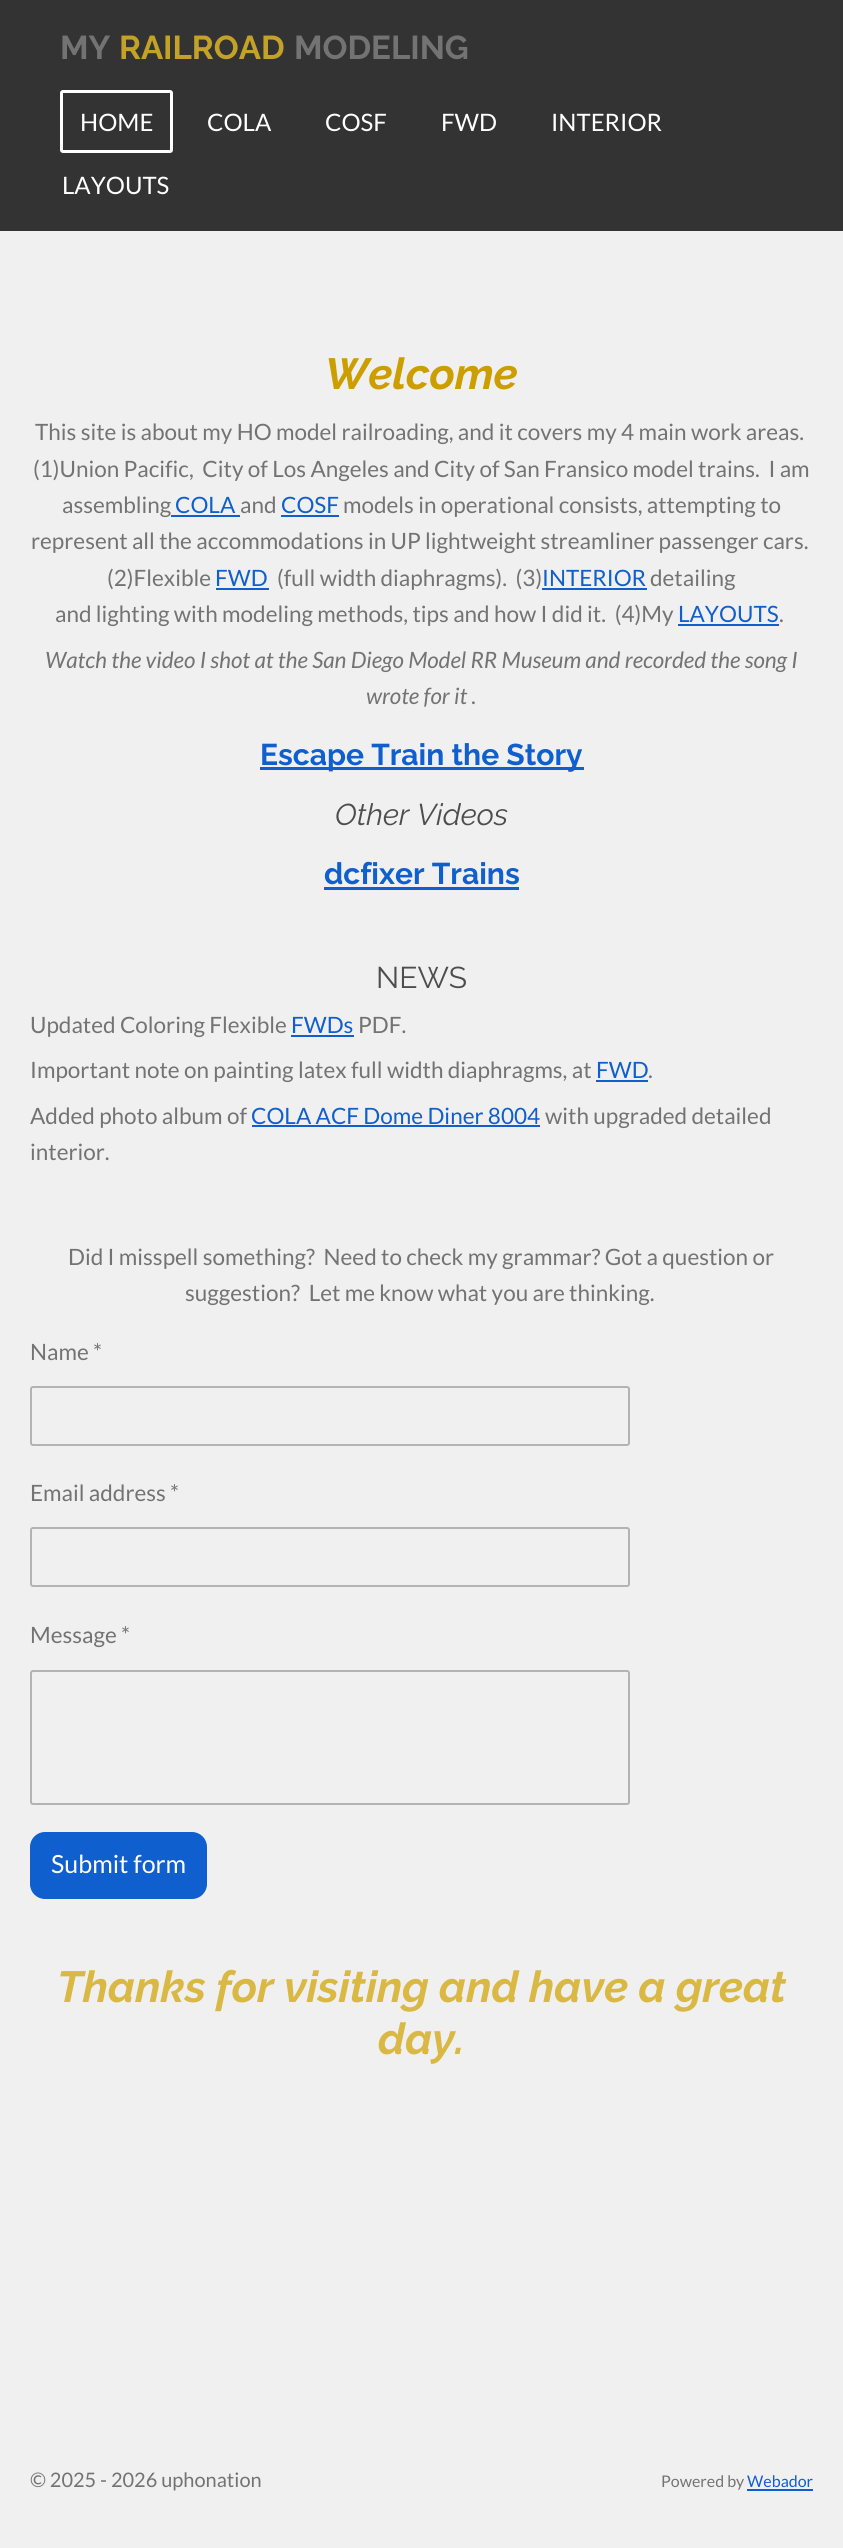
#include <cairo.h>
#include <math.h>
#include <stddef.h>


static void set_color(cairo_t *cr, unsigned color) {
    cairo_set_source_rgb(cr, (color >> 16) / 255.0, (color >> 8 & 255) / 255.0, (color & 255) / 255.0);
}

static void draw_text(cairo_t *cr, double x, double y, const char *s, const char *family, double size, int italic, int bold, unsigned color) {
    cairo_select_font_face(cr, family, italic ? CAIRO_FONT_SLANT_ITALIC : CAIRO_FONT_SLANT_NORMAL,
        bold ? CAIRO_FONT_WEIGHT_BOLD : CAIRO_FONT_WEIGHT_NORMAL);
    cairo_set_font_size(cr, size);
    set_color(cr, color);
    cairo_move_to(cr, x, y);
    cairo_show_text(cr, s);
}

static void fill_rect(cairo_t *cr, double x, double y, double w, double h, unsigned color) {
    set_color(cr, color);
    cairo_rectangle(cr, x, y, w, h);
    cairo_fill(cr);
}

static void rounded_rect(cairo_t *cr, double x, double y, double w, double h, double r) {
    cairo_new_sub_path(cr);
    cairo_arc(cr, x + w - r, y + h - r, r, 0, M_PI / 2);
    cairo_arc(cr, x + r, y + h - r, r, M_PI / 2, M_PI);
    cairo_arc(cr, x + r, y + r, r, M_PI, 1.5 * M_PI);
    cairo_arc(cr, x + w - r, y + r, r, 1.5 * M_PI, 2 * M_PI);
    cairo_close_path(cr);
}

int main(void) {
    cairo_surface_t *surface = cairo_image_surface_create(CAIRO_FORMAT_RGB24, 843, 2548);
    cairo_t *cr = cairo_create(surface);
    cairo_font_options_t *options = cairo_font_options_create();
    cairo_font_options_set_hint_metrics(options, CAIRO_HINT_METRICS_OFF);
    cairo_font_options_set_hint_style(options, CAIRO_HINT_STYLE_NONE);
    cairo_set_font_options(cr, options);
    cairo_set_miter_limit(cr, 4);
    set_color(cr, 0xF0F0F0);
    cairo_paint(cr);
    fill_rect(cr, 0, 0, 843, 231, 0x333333);
    draw_text(cr, 60, 59, "MY", "Raleway", 33, 0, 1, 0x737373);
    draw_text(cr, 119, 59, "RAILROAD", "Raleway", 33, 0, 1, 0xC4A127);
    draw_text(cr, 294, 59, "MODELING", "Raleway", 33, 0, 1, 0x737373);
    rounded_rect(cr, 61.5, 91.5, 110, 60, 1.5);
    set_color(cr, 0xFFFFFF);
    cairo_set_line_width(cr, 3);
    cairo_stroke(cr);
    draw_text(cr, 80, 131, "HOME", "Lato", 24, 0, 0, 0xFFFFFF);
    draw_text(cr, 207, 131, "COLA", "Lato", 24, 0, 0, 0xFFFFFF);
    draw_text(cr, 325, 131, "COSF", "Lato", 24, 0, 0, 0xFFFFFF);
    draw_text(cr, 441, 131, "FWD", "Lato", 24, 0, 0, 0xFFFFFF);
    draw_text(cr, 551, 131, "INTERIOR", "Lato", 24, 0, 0, 0xFFFFFF);
    draw_text(cr, 62, 194, "LAYOUTS", "Lato", 24, 0, 0, 0xFFFFFF);
    draw_text(cr, 325, 389, "Welcome", "Raleway", 43.5, 1, 1, 0xCC9E00);
    draw_text(cr, 35, 440, "This site is about my HO model railroading, and it covers my 4 main work areas.", "Lato", 22.5, 0, 0, 0x737373);
    draw_text(cr, 33, 477, "(1)Union Pacific,  City of Los Angeles and City of San Fransico model trains.  I am", "Lato", 22.5, 0, 0, 0x737373);
    draw_text(cr, 62, 513, "assembling", "Lato", 22.5, 0, 0, 0x737373);
    draw_text(cr, 175, 513, "COLA", "Lato", 22.5, 0, 0, 0x0F5FCE);
    fill_rect(cr, 171, 515, 69, 2, 0x0F5FCE);
    draw_text(cr, 240, 513, "and", "Lato", 22.5, 0, 0, 0x737373);
    draw_text(cr, 281, 513, "COSF", "Lato", 22.5, 0, 0, 0x0F5FCE);
    fill_rect(cr, 281, 515, 58, 2, 0x0F5FCE);
    draw_text(cr, 343, 513, "models in operational consists, attempting to", "Lato", 22.5, 0, 0, 0x737373);
    draw_text(cr, 31, 549, "represent all the accommodations in UP lightweight streamliner passenger cars.", "Lato", 22.5, 0, 0, 0x737373);
    draw_text(cr, 107, 586, "(2)Flexible", "Lato", 22.5, 0, 0, 0x737373);
    draw_text(cr, 215, 586, "FWD", "Lato", 22.5, 0, 0, 0x0F5FCE);
    fill_rect(cr, 216, 588, 53, 2, 0x0F5FCE);
    draw_text(cr, 277, 586, "(full width diaphragms).  (3)", "Lato", 22.5, 0, 0, 0x737373);
    draw_text(cr, 542, 586, "INTERIOR", "Lato", 22.5, 0, 0, 0x0F5FCE);
    fill_rect(cr, 542, 588, 105, 2, 0x0F5FCE);
    draw_text(cr, 650, 586, "detailing", "Lato", 22.5, 0, 0, 0x737373);
    draw_text(cr, 55, 622, "and lighting with modeling methods, tips and how I did it.  (4)My", "Lato", 22.5, 0, 0, 0x737373);
    draw_text(cr, 678, 622, "LAYOUTS", "Lato", 22.5, 0, 0, 0x0F5FCE);
    fill_rect(cr, 678, 624, 101, 2, 0x0F5FCE);
    draw_text(cr, 779, 622, ".", "Lato", 22.5, 0, 0, 0x737373);
    draw_text(cr, 45, 668, "Watch the video I shot at the San Diego Model RR Museum and recorded the song I", "Lato", 22.5, 1, 0, 0x737373);
    draw_text(cr, 366, 704, "wrote for it .", "Lato", 22.5, 1, 0, 0x737373);
    fill_rect(cr, 260, 767, 324, 3, 0x0F5FCE);
    draw_text(cr, 260, 765, "Escape Train the Story", "Raleway", 30, 0, 1, 0x0F5FCE);
    draw_text(cr, 335, 825, "Other Videos", "Raleway", 30, 1, 0, 0x4D4D4D);
    draw_text(cr, 324, 884, "dcfixer Trains", "Raleway", 30, 0, 1, 0x0F5FCE);
    fill_rect(cr, 324, 887, 195, 3, 0x0F5FCE);
    draw_text(cr, 376, 988, "NEWS", "Raleway", 30, 0, 0, 0x4D4D4D);
    draw_text(cr, 30, 1033, "Updated Coloring Flexible", "Lato", 22.5, 0, 0, 0x737373);
    draw_text(cr, 291, 1033, "FWDs", "Lato", 22.5, 0, 0, 0x0F5FCE);
    fill_rect(cr, 291, 1035, 63, 2, 0x0F5FCE);
    draw_text(cr, 358, 1033, "PDF.", "Lato", 22.5, 0, 0, 0x737373);
    draw_text(cr, 30, 1078, "Important note on painting latex full width diaphragms, at", "Lato", 22.5, 0, 0, 0x737373);
    draw_text(cr, 596, 1078, "FWD", "Lato", 22.5, 0, 0, 0x0F5FCE);
    fill_rect(cr, 596, 1080, 52, 2, 0x0F5FCE);
    draw_text(cr, 648, 1078, ".", "Lato", 22.5, 0, 0, 0x737373);
    draw_text(cr, 30, 1124, "Added photo album of", "Lato", 22.5, 0, 0, 0x737373);
    draw_text(cr, 251, 1124, "COLA ACF Dome Diner 8004", "Lato", 22.5, 0, 0, 0x0F5FCE);
    fill_rect(cr, 252, 1125, 288, 2, 0x0F5FCE);
    draw_text(cr, 545, 1124, "with upgraded detailed", "Lato", 22.5, 0, 0, 0x737373);
    draw_text(cr, 30, 1160, "interior.", "Lato", 22.5, 0, 0, 0x737373);
    draw_text(cr, 68, 1265, "Did I misspell something?  Need to check my grammar? Got a question or", "Lato", 22.5, 0, 0, 0x737373);
    draw_text(cr, 185, 1301, "suggestion?  Let me know what you are thinking.", "Lato", 22.5, 0, 0, 0x737373);
    draw_text(cr, 30, 1360, "Name *", "Lato", 22.5, 0, 0, 0x737373);
    rounded_rect(cr, 31, 1387, 598, 58, 2);
    set_color(cr, 0xB3B3B3);
    cairo_set_line_width(cr, 2);
    cairo_stroke(cr);
    draw_text(cr, 30, 1501, "Email address *", "Lato", 22.5, 0, 0, 0x737373);
    rounded_rect(cr, 31, 1528, 598, 58, 2);
    set_color(cr, 0xB3B3B3);
    cairo_stroke(cr);
    draw_text(cr, 30, 1643, "Message *", "Lato", 22.5, 0, 0, 0x737373);
    rounded_rect(cr, 31, 1671, 598, 133, 2);
    set_color(cr, 0xB3B3B3);
    cairo_stroke(cr);
    set_color(cr, 0x0F5FCE);
    rounded_rect(cr, 30, 1832, 177, 67, 15);
    cairo_fill(cr);
    draw_text(cr, 51, 1873, "Submit form", "Lato", 25, 0, 0, 0xFFFFFF);
    draw_text(cr, 57, 2002, "Thanks for visiting and have a great", "Raleway", 43.5, 1, 1, 0xDAB844);
    draw_text(cr, 378, 2054, "day.", "Raleway", 43.5, 1, 1, 0xDAB844);
    draw_text(cr, 30, 2487, "© 2025 - 2026 uphonation", "Lato", 20, 0, 0, 0x737373);
    draw_text(cr, 661, 2487, "Powered by", "Lato", 16, 0, 0, 0x737373);
    fill_rect(cr, 747, 2489, 66, 2, 0x0F5FCE);
    draw_text(cr, 747, 2487, "Webador", "Lato", 16, 0, 0, 0x0F5FCE);
    cairo_surface_write_to_png(surface, "output.png");
    cairo_font_options_destroy(options);
    cairo_destroy(cr);
    cairo_surface_destroy(surface);
    return 0;
}
